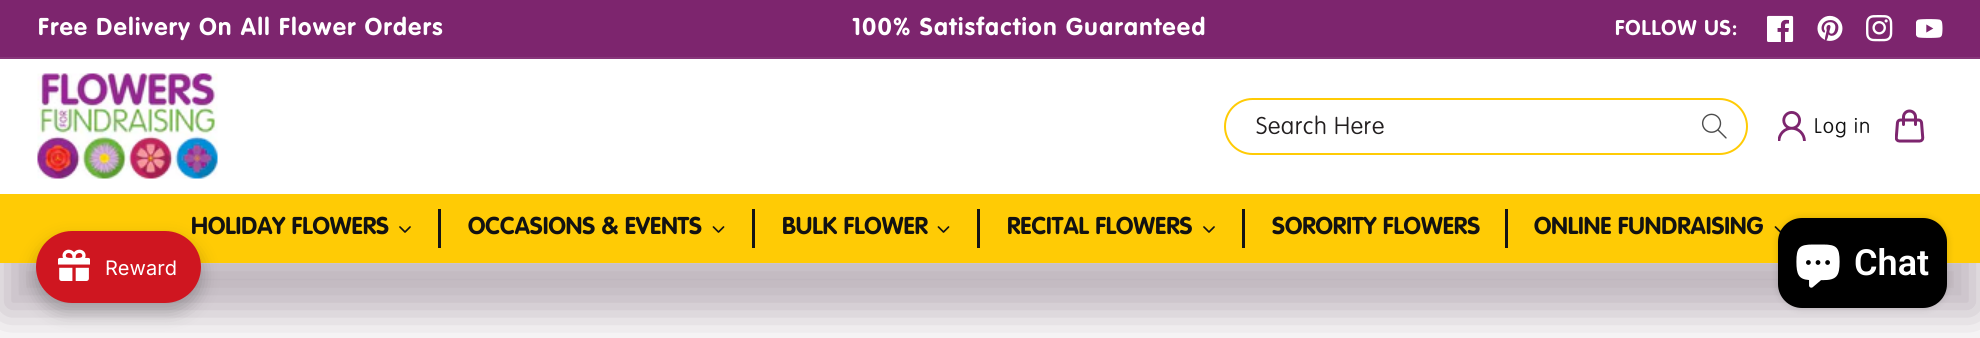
#include <cairo.h>
#include <math.h>
#include <stddef.h>


static void set_color(cairo_t *cr, unsigned color) {
    cairo_set_source_rgb(cr, (color >> 16) / 255.0, (color >> 8 & 255) / 255.0, (color & 255) / 255.0);
}

static void draw_text(cairo_t *cr, double x, double y, const char *s, const char *family, double size, int italic, int bold, unsigned color) {
    cairo_select_font_face(cr, family, italic ? CAIRO_FONT_SLANT_ITALIC : CAIRO_FONT_SLANT_NORMAL,
        bold ? CAIRO_FONT_WEIGHT_BOLD : CAIRO_FONT_WEIGHT_NORMAL);
    cairo_set_font_size(cr, size);
    set_color(cr, color);
    cairo_move_to(cr, x, y);
    cairo_show_text(cr, s);
}

static void draw_spaced(cairo_t *cr, double x, double y, const char *s, double letter, double word) {
    cairo_move_to(cr, x, y);
    while (*s) {
        char ch[5] = {0};
        int n = 0;
        do ch[n++] = *s++; while ((*s & 0xC0) == 0x80);
        cairo_show_text(cr, ch);
        cairo_rel_move_to(cr, letter + word * (*ch == ' '), 0);
    }
}

static void fill_rect(cairo_t *cr, double x, double y, double w, double h, unsigned color) {
    set_color(cr, color);
    cairo_rectangle(cr, x, y, w, h);
    cairo_fill(cr);
}

static void rounded_rect(cairo_t *cr, double x, double y, double w, double h, double r) {
    cairo_new_sub_path(cr);
    cairo_arc(cr, x + w - r, y + h - r, r, 0, M_PI / 2);
    cairo_arc(cr, x + r, y + h - r, r, M_PI / 2, M_PI);
    cairo_arc(cr, x + r, y + r, r, M_PI, 1.5 * M_PI);
    cairo_arc(cr, x + w - r, y + r, r, 1.5 * M_PI, 2 * M_PI);
    cairo_close_path(cr);
}

static void draw_shadow(cairo_t *cr, double x, double y, double w, double h, double r, double blur, double alpha) {
    cairo_push_group_with_content(cr, CAIRO_CONTENT_ALPHA);
    cairo_set_operator(cr, CAIRO_OPERATOR_SOURCE);
    for (int i = 15; i >= -15 && fmin(w, h) + blur * i / 3 > 0; i -= 2) {
        double e = blur * i / 6;
        cairo_set_source_rgba(cr, 0, 0, 0, alpha * erfc((i - 1) / 8.5) / 2);
        rounded_rect(cr, x - e, y - e, w + 2 * e, h + 2 * e, fmax(0, fmin(r + e + blur * .6, fmin(w, h) / 2 + e)));
        cairo_fill(cr);
    }
    cairo_pattern_t *soft = cairo_pop_group(cr);
    cairo_mask(cr, soft);
    cairo_pattern_destroy(soft);
}

static void draw_image(cairo_t *cr, const char *path, double x, double y, double w, double h) {
    cairo_surface_t *image = cairo_image_surface_create_from_png(path);
    cairo_save(cr);
    cairo_set_source_surface(cr, image, x, y);
    cairo_rectangle(cr, x, y, w, h);
    cairo_fill(cr);
    cairo_restore(cr);
    cairo_surface_destroy(image);
}

int main(void) {
    cairo_surface_t *surface = cairo_image_surface_create(CAIRO_FORMAT_RGB24, 1980, 338);
    cairo_t *cr = cairo_create(surface);
    cairo_font_options_t *options = cairo_font_options_create();
    cairo_font_options_set_hint_metrics(options, CAIRO_HINT_METRICS_OFF);
    cairo_font_options_set_hint_style(options, CAIRO_HINT_STYLE_NONE);
    cairo_set_font_options(cr, options);
    cairo_set_miter_limit(cr, 4);
    set_color(cr, 0xFFFFFF);
    cairo_paint(cr);
    fill_rect(cr, 0, 0, 1980, 57, 0x7D256E);
    fill_rect(cr, 0, 57, 1980, 2, 0x87367A);
    cairo_select_font_face(cr, "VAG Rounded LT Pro", CAIRO_FONT_SLANT_NORMAL, CAIRO_FONT_WEIGHT_BOLD);
    cairo_set_font_size(cr, 24);
    set_color(cr, 0xFFFFFF);
    draw_spaced(cr, 38, 35, "Free Delivery On All Flower Orders", 1.5, 0);
    draw_spaced(cr, 852, 35, "100% Satisfaction Guaranteed", 1.5, 0);
    cairo_set_font_size(cr, 21);
    draw_spaced(cr, 1615, 35, "FOLLOW US:", 1, 0);
    draw_image(cr, "assets/img1.png", 1767, 15, 27, 27);
    draw_image(cr, "assets/img2.png", 1817, 15, 26, 26);
    draw_image(cr, "assets/img3.png", 1866, 15, 27, 27);
    draw_image(cr, "assets/img4.png", 1916, 19, 27, 19);
    set_color(cr, 0x24021E);
    draw_shadow(cr, 0, 245, 1980, 69, 0, 22.5, 0.3);
    draw_image(cr, "assets/img5.png", 37, 73, 181, 106);
    rounded_rect(cr, 1225, 99, 522, 55, 27.5);
    set_color(cr, 0xFFCB05);
    cairo_stroke(cr);
    cairo_select_font_face(cr, "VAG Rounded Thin", CAIRO_FONT_SLANT_NORMAL, CAIRO_FONT_WEIGHT_NORMAL);
    cairo_set_font_size(cr, 24);
    set_color(cr, 0x231F20);
    draw_spaced(cr, 1256, 134, "Search Here", 0.6, 0);
    draw_image(cr, "assets/img6.png", 1701, 113, 26, 26);
    draw_image(cr, "assets/img7.png", 1778, 111, 28, 30);
    cairo_set_font_size(cr, 21);
    set_color(cr, 0x121212);
    draw_spaced(cr, 1814, 133, "Log in", 1, 0);
    draw_image(cr, "assets/img8.png", 1895, 109, 30, 34);
    fill_rect(cr, 0, 194, 1980, 69, 0xFFCB05);
    draw_text(cr, 191, 234, "HOLIDAY FLOWERS", "VAG Rounded LT Pro", 24, 0, 1, 0x121212);
    draw_image(cr, "assets/img9.png", 399, 226, 12, 7);
    fill_rect(cr, 438, 209, 3, 39, 0x141414);
    draw_text(cr, 468, 234, "OCCASIONS & EVENTS", "VAG Rounded LT Pro", 24, 0, 1, 0x121212);
    draw_image(cr, "assets/img10.png", 712, 226, 13, 7);
    fill_rect(cr, 752, 209, 3, 39, 0x141414);
    draw_text(cr, 782, 234, "BULK FLOWER", "VAG Rounded LT Pro", 24, 0, 1, 0x121212);
    draw_image(cr, "assets/img10.png", 937, 226, 13, 7);
    fill_rect(cr, 977, 209, 3, 39, 0x141414);
    draw_text(cr, 1007, 234, "RECITAL FLOWERS", "VAG Rounded LT Pro", 24, 0, 1, 0x121212);
    draw_image(cr, "assets/img9.png", 1203, 226, 12, 7);
    fill_rect(cr, 1242, 209, 3, 39, 0x141414);
    draw_text(cr, 1272, 234, "SORORITY FLOWERS", "VAG Rounded LT Pro", 24, 0, 1, 0x121212);
    fill_rect(cr, 1505, 209, 3, 39, 0x141414);
    draw_text(cr, 1534, 234, "ONLINE FUNDRAISING", "VAG Rounded LT Pro", 24, 0, 1, 0x121212);
    draw_image(cr, "assets/img11.png", 1774, 226, 11, 7);
    set_color(cr, 0x000000);
    draw_shadow(cr, 36, 240, 165, 72, 36, 9, 0.25);
    set_color(cr, 0xCF1620);
    rounded_rect(cr, 36, 231, 165, 72, 36);
    cairo_fill(cr);
    draw_image(cr, "assets/img12.png", 58, 249, 32, 32);
    draw_text(cr, 105, 275, "Reward", "Inter", 20, 0, 0, 0xFFFFFF);
    set_color(cr, 0x000000);
    draw_shadow(cr, 1778, 218, 169, 90, 24, 4, 0.15);
    set_color(cr, 0x000000);
    rounded_rect(cr, 1778, 218, 169, 90, 24);
    cairo_fill(cr);
    draw_image(cr, "assets/img13.png", 1796, 244, 44, 44);
    draw_text(cr, 1854, 275, "Chat", "Roboto SemiBold", 36, 0, 0, 0xFFFFFF);
    cairo_surface_write_to_png(surface, "output.png");
    cairo_font_options_destroy(options);
    cairo_destroy(cr);
    cairo_surface_destroy(surface);
    return 0;
}
